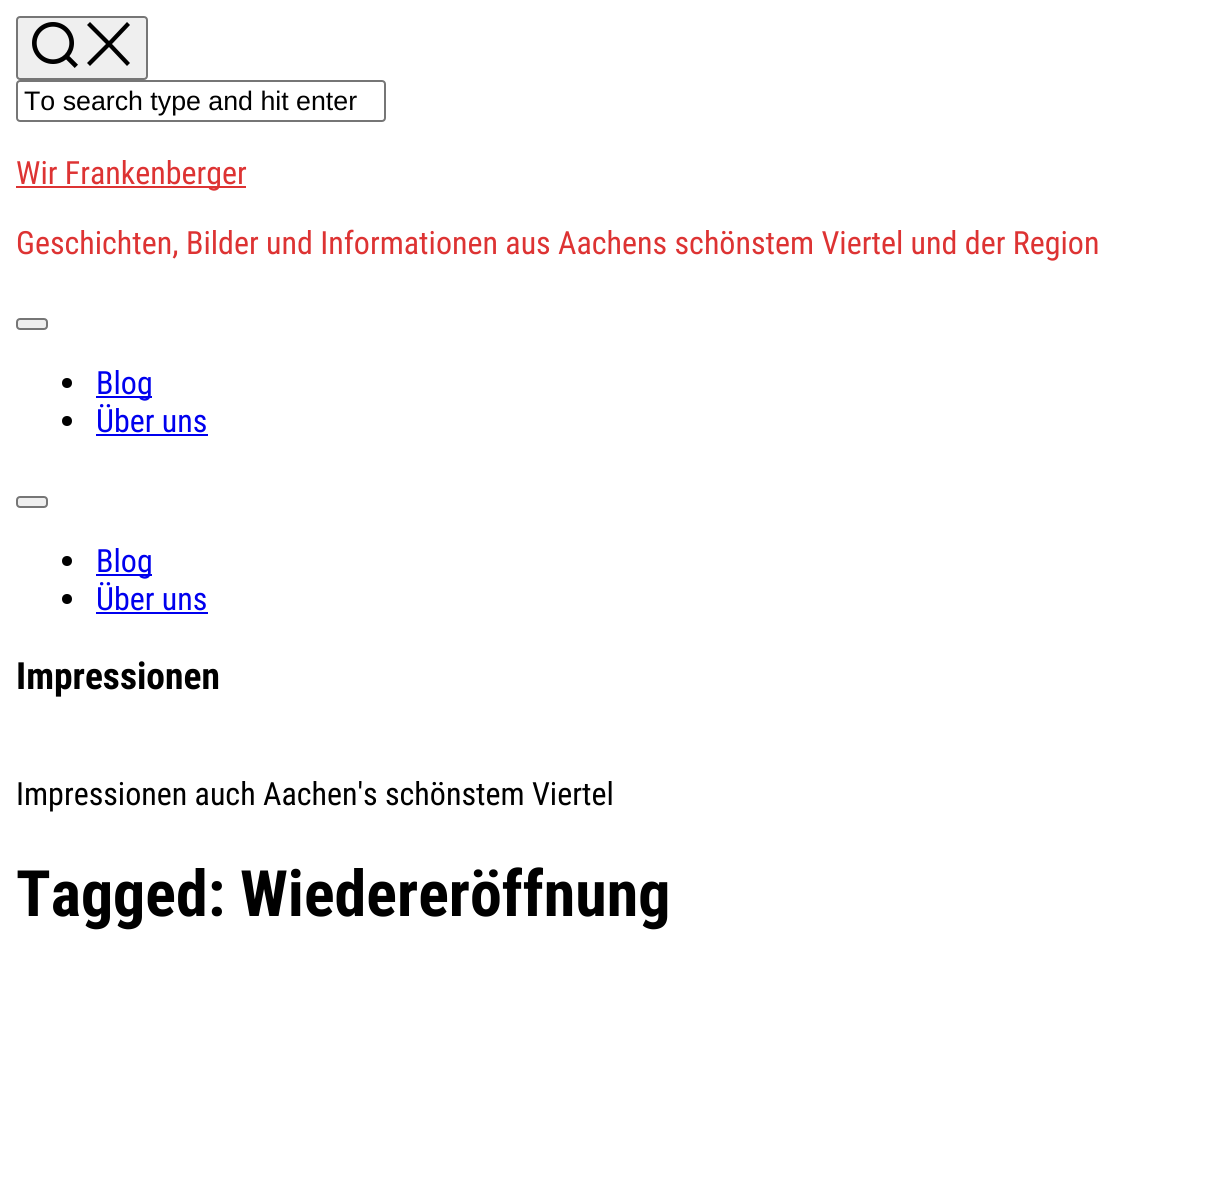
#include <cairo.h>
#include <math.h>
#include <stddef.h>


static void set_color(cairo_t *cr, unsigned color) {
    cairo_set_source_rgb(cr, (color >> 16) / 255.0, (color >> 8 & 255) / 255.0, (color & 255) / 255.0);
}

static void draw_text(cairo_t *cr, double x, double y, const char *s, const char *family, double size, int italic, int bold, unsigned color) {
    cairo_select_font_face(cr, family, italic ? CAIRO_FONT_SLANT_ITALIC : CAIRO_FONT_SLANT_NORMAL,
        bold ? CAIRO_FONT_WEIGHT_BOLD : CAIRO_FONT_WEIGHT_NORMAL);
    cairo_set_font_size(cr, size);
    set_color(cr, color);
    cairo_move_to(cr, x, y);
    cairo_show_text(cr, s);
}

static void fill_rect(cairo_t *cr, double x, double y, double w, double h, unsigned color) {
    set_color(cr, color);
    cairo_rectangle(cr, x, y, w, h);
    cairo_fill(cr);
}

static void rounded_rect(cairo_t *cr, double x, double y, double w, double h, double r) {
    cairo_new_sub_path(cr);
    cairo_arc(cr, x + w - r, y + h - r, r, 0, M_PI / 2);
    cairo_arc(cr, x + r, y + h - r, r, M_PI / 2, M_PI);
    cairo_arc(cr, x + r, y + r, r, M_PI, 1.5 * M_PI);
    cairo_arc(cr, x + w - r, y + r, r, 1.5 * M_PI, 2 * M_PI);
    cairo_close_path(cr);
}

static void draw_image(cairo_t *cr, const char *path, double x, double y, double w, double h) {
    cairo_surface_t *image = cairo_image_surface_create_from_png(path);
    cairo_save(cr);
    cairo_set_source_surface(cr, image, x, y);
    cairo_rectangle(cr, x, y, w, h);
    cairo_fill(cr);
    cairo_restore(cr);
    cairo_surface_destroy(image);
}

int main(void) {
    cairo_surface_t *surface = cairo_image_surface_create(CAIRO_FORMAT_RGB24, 1210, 1197);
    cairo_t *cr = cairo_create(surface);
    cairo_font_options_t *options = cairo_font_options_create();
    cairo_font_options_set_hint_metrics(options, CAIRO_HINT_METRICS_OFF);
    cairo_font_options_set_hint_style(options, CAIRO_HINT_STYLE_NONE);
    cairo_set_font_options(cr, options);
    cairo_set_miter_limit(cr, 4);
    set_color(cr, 0xFFFFFF);
    cairo_paint(cr);
    set_color(cr, 0xEFEFEF);
    rounded_rect(cr, 17, 17, 130, 62, 3);
    cairo_fill_preserve(cr);
    set_color(cr, 0x767676);
    cairo_stroke(cr);
    draw_image(cr, "assets/img1.png", 32, 22, 46, 46);
    set_color(cr, 0x000000);
    cairo_set_fill_rule(cr, CAIRO_FILL_RULE_EVEN_ODD);
    cairo_new_path(cr);
    cairo_move_to(cr, 106, 44);
    cairo_line_to(cr, 87, 25);
    cairo_line_to(cr, 90, 22);
    cairo_line_to(cr, 109, 41);
    cairo_line_to(cr, 127, 22);
    cairo_line_to(cr, 130, 25);
    cairo_line_to(cr, 112, 44);
    cairo_line_to(cr, 130, 63);
    cairo_line_to(cr, 127, 66);
    cairo_line_to(cr, 109, 47);
    cairo_line_to(cr, 90, 66);
    cairo_line_to(cr, 87, 63);
    cairo_close_path(cr);
    cairo_fill(cr);
    rounded_rect(cr, 17, 81, 368, 40, 3);
    set_color(cr, 0x767676);
    cairo_stroke(cr);
    draw_text(cr, 24, 110, "To search type and hit enter", "Liberation Sans", 26.75, 0, 0, 0x000000);
    fill_rect(cr, 16, 186, 230, 2, 0xDD3333);
    draw_text(cr, 16, 184, "Wir Frankenberger", "Roboto Condensed", 32, 0, 0, 0xDD3333);
    draw_text(cr, 16, 254, "Geschichten, Bilder und Informationen aus Aachens schönstem Viertel und der Region", "Roboto Condensed", 32, 0, 0, 0xDD3333);
    set_color(cr, 0xEFEFEF);
    rounded_rect(cr, 17, 319, 30, 10, 3);
    cairo_fill_preserve(cr);
    set_color(cr, 0x767676);
    cairo_stroke(cr);
    set_color(cr, 0x000000);
    cairo_arc(cr, 67, 383, 5, 0, 2 * M_PI);
    cairo_fill(cr);
    fill_rect(cr, 96, 396, 56, 2, 0x0000EE);
    draw_text(cr, 96, 394, "Blog", "Roboto Condensed", 32, 0, 0, 0x0000EE);
    set_color(cr, 0x000000);
    cairo_new_path(cr);
    cairo_arc(cr, 67, 421, 5, 0, 2 * M_PI);
    cairo_fill(cr);
    draw_text(cr, 96, 432, "Über uns", "Roboto Condensed", 32, 0, 0, 0x0000EE);
    fill_rect(cr, 96, 434, 112, 2, 0x0000EE);
    set_color(cr, 0xEFEFEF);
    rounded_rect(cr, 17, 497, 30, 10, 3);
    cairo_fill_preserve(cr);
    set_color(cr, 0x767676);
    cairo_stroke(cr);
    set_color(cr, 0x000000);
    cairo_arc(cr, 67, 561, 5, 0, 2 * M_PI);
    cairo_fill(cr);
    fill_rect(cr, 96, 574, 56, 2, 0x0000EE);
    draw_text(cr, 96, 572, "Blog", "Roboto Condensed", 32, 0, 0, 0x0000EE);
    set_color(cr, 0x000000);
    cairo_new_path(cr);
    cairo_arc(cr, 67, 599, 5, 0, 2 * M_PI);
    cairo_fill(cr);
    draw_text(cr, 96, 610, "Über uns", "Roboto Condensed", 32, 0, 0, 0x0000EE);
    fill_rect(cr, 96, 612, 112, 2, 0x0000EE);
    draw_text(cr, 16, 689, "Impressionen", "Roboto Condensed", 37.5, 0, 1, 0x000000);
    draw_text(cr, 16, 805, "Impressionen auch Aachen's schönstem Viertel", "Roboto Condensed", 32, 0, 0, 0x000000);
    draw_text(cr, 16, 916, "Tagged: Wiedereröffnung", "Roboto Condensed", 64, 0, 1, 0x000000);
    cairo_surface_write_to_png(surface, "output.png");
    cairo_font_options_destroy(options);
    cairo_destroy(cr);
    cairo_surface_destroy(surface);
    return 0;
}
